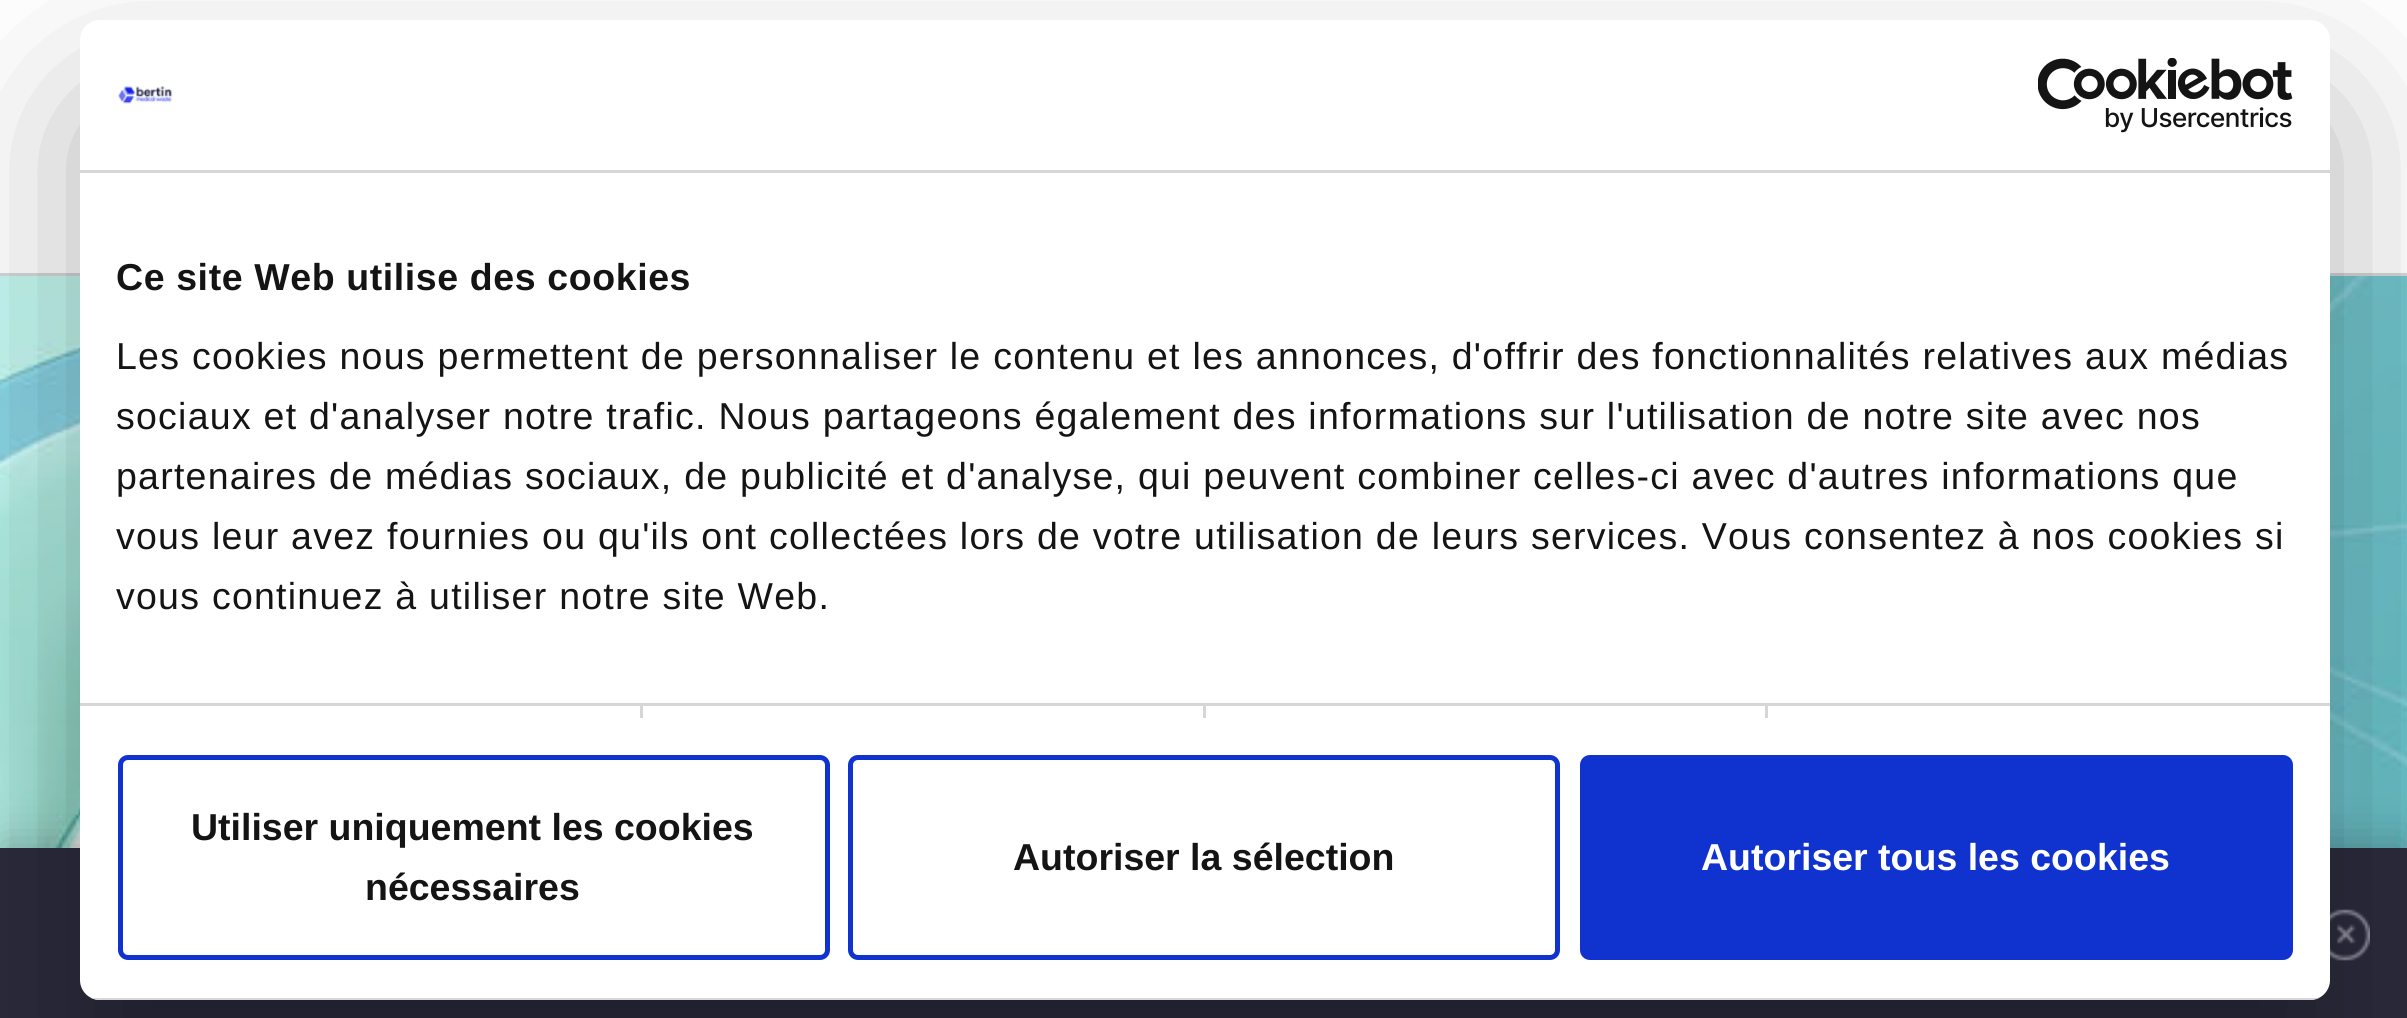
#include <cairo.h>
#include <math.h>
#include <stddef.h>


static void set_color(cairo_t *cr, unsigned color) {
    cairo_set_source_rgb(cr, (color >> 16) / 255.0, (color >> 8 & 255) / 255.0, (color & 255) / 255.0);
}

static void draw_text(cairo_t *cr, double x, double y, const char *s, const char *family, double size, int italic, int bold, unsigned color) {
    cairo_select_font_face(cr, family, italic ? CAIRO_FONT_SLANT_ITALIC : CAIRO_FONT_SLANT_NORMAL,
        bold ? CAIRO_FONT_WEIGHT_BOLD : CAIRO_FONT_WEIGHT_NORMAL);
    cairo_set_font_size(cr, size);
    set_color(cr, color);
    cairo_move_to(cr, x, y);
    cairo_show_text(cr, s);
}

static void draw_spaced(cairo_t *cr, double x, double y, const char *s, double letter, double word) {
    cairo_move_to(cr, x, y);
    while (*s) {
        char ch[5] = {0};
        int n = 0;
        do ch[n++] = *s++; while ((*s & 0xC0) == 0x80);
        cairo_show_text(cr, ch);
        cairo_rel_move_to(cr, letter + word * (*ch == ' '), 0);
    }
}

static void fill_rect(cairo_t *cr, double x, double y, double w, double h, unsigned color) {
    set_color(cr, color);
    cairo_rectangle(cr, x, y, w, h);
    cairo_fill(cr);
}

static void rounded_rect(cairo_t *cr, double x, double y, double w, double h, double r) {
    cairo_new_sub_path(cr);
    cairo_arc(cr, x + w - r, y + h - r, r, 0, M_PI / 2);
    cairo_arc(cr, x + r, y + h - r, r, M_PI / 2, M_PI);
    cairo_arc(cr, x + r, y + r, r, M_PI, 1.5 * M_PI);
    cairo_arc(cr, x + w - r, y + r, r, 1.5 * M_PI, 2 * M_PI);
    cairo_close_path(cr);
}

static void draw_shadow(cairo_t *cr, double x, double y, double w, double h, double r, double blur, double alpha) {
    cairo_push_group_with_content(cr, CAIRO_CONTENT_ALPHA);
    cairo_set_operator(cr, CAIRO_OPERATOR_SOURCE);
    for (int i = 15; i >= -15 && fmin(w, h) + blur * i / 3 > 0; i -= 2) {
        double e = blur * i / 6;
        cairo_set_source_rgba(cr, 0, 0, 0, alpha * erfc((i - 1) / 8.5) / 2);
        rounded_rect(cr, x - e, y - e, w + 2 * e, h + 2 * e, fmax(0, fmin(r + e + blur * .6, fmin(w, h) / 2 + e)));
        cairo_fill(cr);
    }
    cairo_pattern_t *soft = cairo_pop_group(cr);
    cairo_mask(cr, soft);
    cairo_pattern_destroy(soft);
}

static void draw_image(cairo_t *cr, const char *path, double x, double y, double w, double h) {
    cairo_surface_t *image = cairo_image_surface_create_from_png(path);
    cairo_save(cr);
    cairo_set_source_surface(cr, image, x, y);
    cairo_rectangle(cr, x, y, w, h);
    cairo_fill(cr);
    cairo_restore(cr);
    cairo_surface_destroy(image);
}

int main(void) {
    cairo_surface_t *surface = cairo_image_surface_create(CAIRO_FORMAT_RGB24, 2407, 1018);
    cairo_t *cr = cairo_create(surface);
    cairo_font_options_t *options = cairo_font_options_create();
    cairo_font_options_set_hint_metrics(options, CAIRO_HINT_METRICS_OFF);
    cairo_font_options_set_hint_style(options, CAIRO_HINT_STYLE_NONE);
    cairo_set_font_options(cr, options);
    cairo_set_miter_limit(cr, 4);
    set_color(cr, 0xFFFFFF);
    cairo_paint(cr);
    fill_rect(cr, 0, 273, 2407, 3, 0xD5D6D7);
    draw_image(cr, "assets/img3.png", 0, 276, 2407, 572);
    set_color(cr, 0x000000);
    draw_shadow(cr, 0, 840, 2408, 173, 0, 22.5, 0.2);
    fill_rect(cr, 0, 848, 2407, 170, 0x2C2B3D);
    draw_image(cr, "assets/img4.png", 2330, 909, 40, 52);
    set_color(cr, 0x000000);
    draw_shadow(cr, 80, 100, 2250, 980, 20, 85, 0.3);
    set_color(cr, 0xFFFFFF);
    rounded_rect(cr, 80, 20, 2250, 980, 20);
    cairo_fill(cr);
    fill_rect(cr, 80, 170, 2250, 3, 0xD6D6D6);
    draw_image(cr, "assets/img1.png", 118, 86, 55, 18);
    draw_image(cr, "assets/img2.png", 2038, 58, 255, 75);
    fill_rect(cr, 640, 705, 3, 13, 0xD6D6D6);
    fill_rect(cr, 1203, 705, 3, 13, 0xD6D6D6);
    fill_rect(cr, 1765, 705, 3, 13, 0xD6D6D6);
    fill_rect(cr, 80, 703, 2250, 3, 0xD6D6D6);
    cairo_select_font_face(cr, "Liberation Sans", CAIRO_FONT_SLANT_NORMAL, CAIRO_FONT_WEIGHT_BOLD);
    cairo_set_font_size(cr, 37.5);
    set_color(cr, 0x141414);
    draw_spaced(cr, 116, 290, "Ce site Web utilise des cookies", 0.6, 0);
    cairo_select_font_face(cr, "Liberation Sans", CAIRO_FONT_SLANT_NORMAL, CAIRO_FONT_WEIGHT_NORMAL);
    draw_spaced(cr, 116, 369, "Les cookies nous permettent de personnaliser le contenu et les annonces, d'offrir des fonctionnalités relatives aux médias", 1.25, 0);
    draw_spaced(cr, 116, 429, "sociaux et d'analyser notre trafic. Nous partageons également des informations sur l'utilisation de notre site avec nos", 1.25, 0);
    draw_spaced(cr, 116, 489, "partenaires de médias sociaux, de publicité et d'analyse, qui peuvent combiner celles-ci avec d'autres informations que", 1.25, 0);
    draw_spaced(cr, 116, 549, "vous leur avez fournies ou qu'ils ont collectées lors de votre utilisation de leurs services. Vous consentez à nos cookies si", 1.25, 0);
    draw_spaced(cr, 116, 609, "vous continuez à utiliser notre site Web.", 1.25, 0);
    cairo_save(cr);
    rounded_rect(cr, 80, 20, 2250, 980, 20);
    cairo_clip(cr);
    fill_rect(cr, 91, 998, 2228, 2, 0xD6D6D6);
    cairo_restore(cr);
    rounded_rect(cr, 120.5, 757.5, 707, 200, 7.5);
    set_color(cr, 0x1032CF);
    cairo_set_line_width(cr, 5);
    cairo_stroke(cr);
    draw_text(cr, 191, 840, "Utiliser uniquement les cookies", "Liberation Sans", 37.5, 0, 1, 0x141414);
    draw_text(cr, 365, 900, "nécessaires", "Liberation Sans", 37.5, 0, 1, 0x141414);
    rounded_rect(cr, 850.5, 757.5, 707, 200, 7.5);
    set_color(cr, 0x1032CF);
    cairo_stroke(cr);
    draw_text(cr, 1013, 870, "Autoriser la sélection", "Liberation Sans", 37.5, 0, 1, 0x141414);
    set_color(cr, 0x1032CF);
    rounded_rect(cr, 1582.5, 757.5, 708, 200, 7.5);
    cairo_fill_preserve(cr);
    cairo_stroke(cr);
    draw_text(cr, 1701, 870, "Autoriser tous les cookies", "Liberation Sans", 37.5, 0, 1, 0xFFFFFF);
    cairo_surface_write_to_png(surface, "output.png");
    cairo_font_options_destroy(options);
    cairo_destroy(cr);
    cairo_surface_destroy(surface);
    return 0;
}
